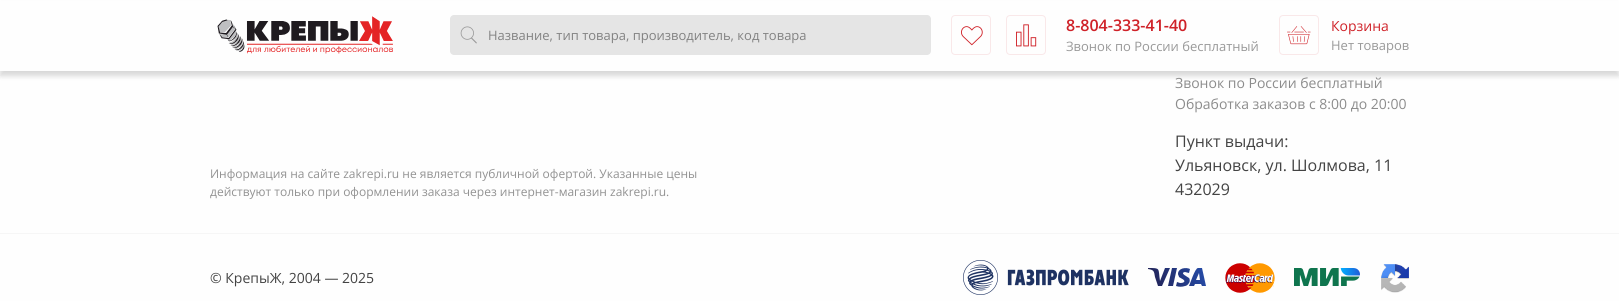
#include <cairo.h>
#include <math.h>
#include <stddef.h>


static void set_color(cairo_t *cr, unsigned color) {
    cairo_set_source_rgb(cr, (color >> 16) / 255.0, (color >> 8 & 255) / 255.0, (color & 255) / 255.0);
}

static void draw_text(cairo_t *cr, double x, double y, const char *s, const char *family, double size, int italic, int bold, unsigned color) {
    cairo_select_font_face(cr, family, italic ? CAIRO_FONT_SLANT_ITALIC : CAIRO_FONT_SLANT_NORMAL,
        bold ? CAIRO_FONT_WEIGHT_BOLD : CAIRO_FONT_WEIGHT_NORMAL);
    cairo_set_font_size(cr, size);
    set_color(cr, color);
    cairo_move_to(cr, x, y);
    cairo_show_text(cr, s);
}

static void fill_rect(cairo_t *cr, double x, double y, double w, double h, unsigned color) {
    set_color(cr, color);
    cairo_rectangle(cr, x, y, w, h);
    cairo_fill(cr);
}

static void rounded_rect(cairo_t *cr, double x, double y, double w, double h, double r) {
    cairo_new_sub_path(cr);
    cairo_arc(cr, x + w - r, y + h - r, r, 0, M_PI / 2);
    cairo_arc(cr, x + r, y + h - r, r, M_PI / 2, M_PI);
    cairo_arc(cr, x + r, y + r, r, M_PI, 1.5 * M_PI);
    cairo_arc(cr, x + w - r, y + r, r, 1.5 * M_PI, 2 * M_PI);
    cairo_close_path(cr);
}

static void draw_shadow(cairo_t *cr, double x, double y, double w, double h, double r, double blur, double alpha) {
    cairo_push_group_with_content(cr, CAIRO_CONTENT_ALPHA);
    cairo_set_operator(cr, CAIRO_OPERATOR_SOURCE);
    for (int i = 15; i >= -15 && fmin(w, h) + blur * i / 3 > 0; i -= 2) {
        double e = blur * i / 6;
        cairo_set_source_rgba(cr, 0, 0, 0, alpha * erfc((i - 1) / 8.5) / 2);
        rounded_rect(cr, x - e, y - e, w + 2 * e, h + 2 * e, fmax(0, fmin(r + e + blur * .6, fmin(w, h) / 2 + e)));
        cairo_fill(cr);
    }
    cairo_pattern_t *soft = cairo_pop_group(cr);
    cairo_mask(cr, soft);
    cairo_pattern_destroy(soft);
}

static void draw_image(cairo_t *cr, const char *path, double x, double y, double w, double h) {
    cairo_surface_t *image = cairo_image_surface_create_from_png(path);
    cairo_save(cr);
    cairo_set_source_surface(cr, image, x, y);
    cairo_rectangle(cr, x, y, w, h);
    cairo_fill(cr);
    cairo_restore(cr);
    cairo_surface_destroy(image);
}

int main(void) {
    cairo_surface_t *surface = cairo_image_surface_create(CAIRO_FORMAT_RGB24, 1619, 301);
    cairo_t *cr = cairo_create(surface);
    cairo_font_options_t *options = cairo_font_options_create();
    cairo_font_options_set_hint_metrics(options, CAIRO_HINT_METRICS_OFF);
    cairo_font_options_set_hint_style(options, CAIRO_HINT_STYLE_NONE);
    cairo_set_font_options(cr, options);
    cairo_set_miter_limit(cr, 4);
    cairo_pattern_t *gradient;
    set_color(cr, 0xFEFEFE);
    cairo_paint(cr);
    set_color(cr, 0x000000);
    draw_shadow(cr, 0, 5, 1619, 71, 0, 2.5, 0.15);
    fill_rect(cr, 0, 1, 1619, 70, 0xFEFEFE);
    draw_image(cr, "assets/img1.png", 217, 16, 176, 38);
    set_color(cr, 0xE5E5E5);
    rounded_rect(cr, 450, 15, 481, 40, 4);
    cairo_fill(cr);
    draw_image(cr, "assets/img2.png", 460, 26, 17, 18);
    draw_text(cr, 488, 40, "Название, тип товара, производитель, код товара", "Open Sans", 13, 0, 0, 0x828282);
    rounded_rect(cr, 951.5, 15.5, 39, 39, 3.5);
    set_color(cr, 0xF9E8E9);
    cairo_set_line_width(cr, 1);
    cairo_stroke(cr);
    draw_image(cr, "assets/img3.png", 961, 26, 22, 20);
    rounded_rect(cr, 1006.5, 15.5, 39, 39, 3.5);
    cairo_stroke(cr);
    draw_image(cr, "assets/img4.png", 1016, 24, 21, 23);
    draw_text(cr, 1066, 31, "8-804-333-41-40", "Open Sans SemiBold", 16, 0, 0, 0xCF2128);
    draw_text(cr, 1066, 51, "Звонок по России бесплатный", "Open Sans", 13, 0, 0, 0x999999);
    rounded_rect(cr, 1279.5, 15.5, 39, 39, 3.5);
    set_color(cr, 0xF9E8E9);
    cairo_stroke(cr);
    draw_image(cr, "assets/img5.png", 1287, 26, 24, 19);
    draw_text(cr, 1331, 31, "Корзина", "Open Sans", 14, 0, 0, 0xCF2128);
    draw_text(cr, 1331, 50, "Нет товаров", "Open Sans", 13, 0, 0, 0x999999);
    fill_rect(cr, 0, 233, 1619, 1, 0xF6F6F6);
    draw_text(cr, 1175, 88, "Звонок по России бесплатный", "Open Sans", 14, 0, 0, 0x8C8C8C);
    draw_text(cr, 1175, 109, "Обработка заказов с 8:00 до 20:00", "Open Sans", 14, 0, 0, 0x8C8C8C);
    draw_text(cr, 210, 178, "Информация на сайте zakrepi.ru не является публичной офертой. Указанные цены", "Open Sans", 12, 0, 0, 0x929292);
    draw_text(cr, 210, 196, "действуют только при оформлении заказа через интернет-магазин zakrepi.ru.", "Open Sans", 12, 0, 0, 0x929292);
    draw_text(cr, 1175, 147, "Пункт выдачи:", "Open Sans", 16, 0, 0, 0x434343);
    draw_text(cr, 1175, 171, "Ульяновск, ул. Шолмова, 11", "Open Sans", 16, 0, 0, 0x434343);
    draw_text(cr, 1175, 195, "432029", "Open Sans", 16, 0, 0, 0x434343);
    draw_text(cr, 210, 283, "© КрепыЖ, 2004 — 2025", "Open Sans", 14, 0, 0, 0x434343);
    draw_image(cr, "assets/img6.png", 963, 260, 166, 35);
    gradient = cairo_pattern_create_linear(1153, 286, 1202, 268);
    cairo_pattern_add_color_stop_rgba(gradient, 0, 0.133, 0.137, 0.341, 1);
    cairo_pattern_add_color_stop_rgba(gradient, 1, 0.145, 0.29, 0.647, 1);
    cairo_set_source(cr, gradient);
    cairo_pattern_destroy(gradient);
    cairo_set_fill_rule(cr, CAIRO_FILL_RULE_EVEN_ODD);
    cairo_new_path(cr);
    cairo_move_to(cr, 1178, 274);
    cairo_curve_to(cr, 1178, 268, 1186, 267, 1190, 269);
    cairo_line_to(cr, 1189, 273);
    cairo_line_to(cr, 1185, 272);
    cairo_curve_to(cr, 1179, 273, 1188, 277, 1189, 278);
    cairo_curve_to(cr, 1190, 279, 1190, 282, 1189, 283);
    cairo_curve_to(cr, 1188, 285, 1186, 286, 1185, 286);
    cairo_curve_to(cr, 1182, 287, 1179, 287, 1176, 286);
    cairo_line_to(cr, 1177, 282);
    cairo_line_to(cr, 1180, 283);
    cairo_curve_to(cr, 1181, 283, 1183, 283, 1184, 282);
    cairo_curve_to(cr, 1186, 280, 1180, 278, 1179, 277);
    cairo_curve_to(cr, 1179, 276, 1178, 275, 1178, 274);
    cairo_close_path(cr);
    cairo_move_to(cr, 1165, 268);
    cairo_line_to(cr, 1170, 268);
    cairo_line_to(cr, 1162, 286);
    cairo_line_to(cr, 1158, 286);
    cairo_line_to(cr, 1155, 277);
    cairo_curve_to(cr, 1154, 271, 1154, 270, 1148, 269);
    cairo_line_to(cr, 1148, 268);
    cairo_curve_to(cr, 1161, 268, 1158, 268, 1160, 281);
    cairo_close_path(cr);
    cairo_move_to(cr, 1172, 268);
    cairo_line_to(cr, 1177, 268);
    cairo_line_to(cr, 1173, 286);
    cairo_line_to(cr, 1168, 286);
    cairo_close_path(cr);
    cairo_move_to(cr, 1198, 268);
    cairo_line_to(cr, 1202, 268);
    cairo_line_to(cr, 1206, 286);
    cairo_line_to(cr, 1202, 286);
    cairo_line_to(cr, 1201, 284);
    cairo_line_to(cr, 1195, 284);
    cairo_line_to(cr, 1194, 286);
    cairo_line_to(cr, 1189, 286);
    cairo_curve_to(cr, 1190, 284, 1195, 268, 1198, 268);
    cairo_close_path(cr);
    cairo_move_to(cr, 1199, 273);
    cairo_line_to(cr, 1196, 280);
    cairo_line_to(cr, 1200, 280);
    cairo_close_path(cr);
    cairo_fill(cr);
    draw_image(cr, "assets/img7.png", 1225, 263, 50, 30);
    draw_image(cr, "assets/img8.png", 1294, 268, 66, 18);
    draw_image(cr, "assets/img9.png", 1381, 264, 28, 29);
    cairo_surface_write_to_png(surface, "output.png");
    cairo_font_options_destroy(options);
    cairo_destroy(cr);
    cairo_surface_destroy(surface);
    return 0;
}
